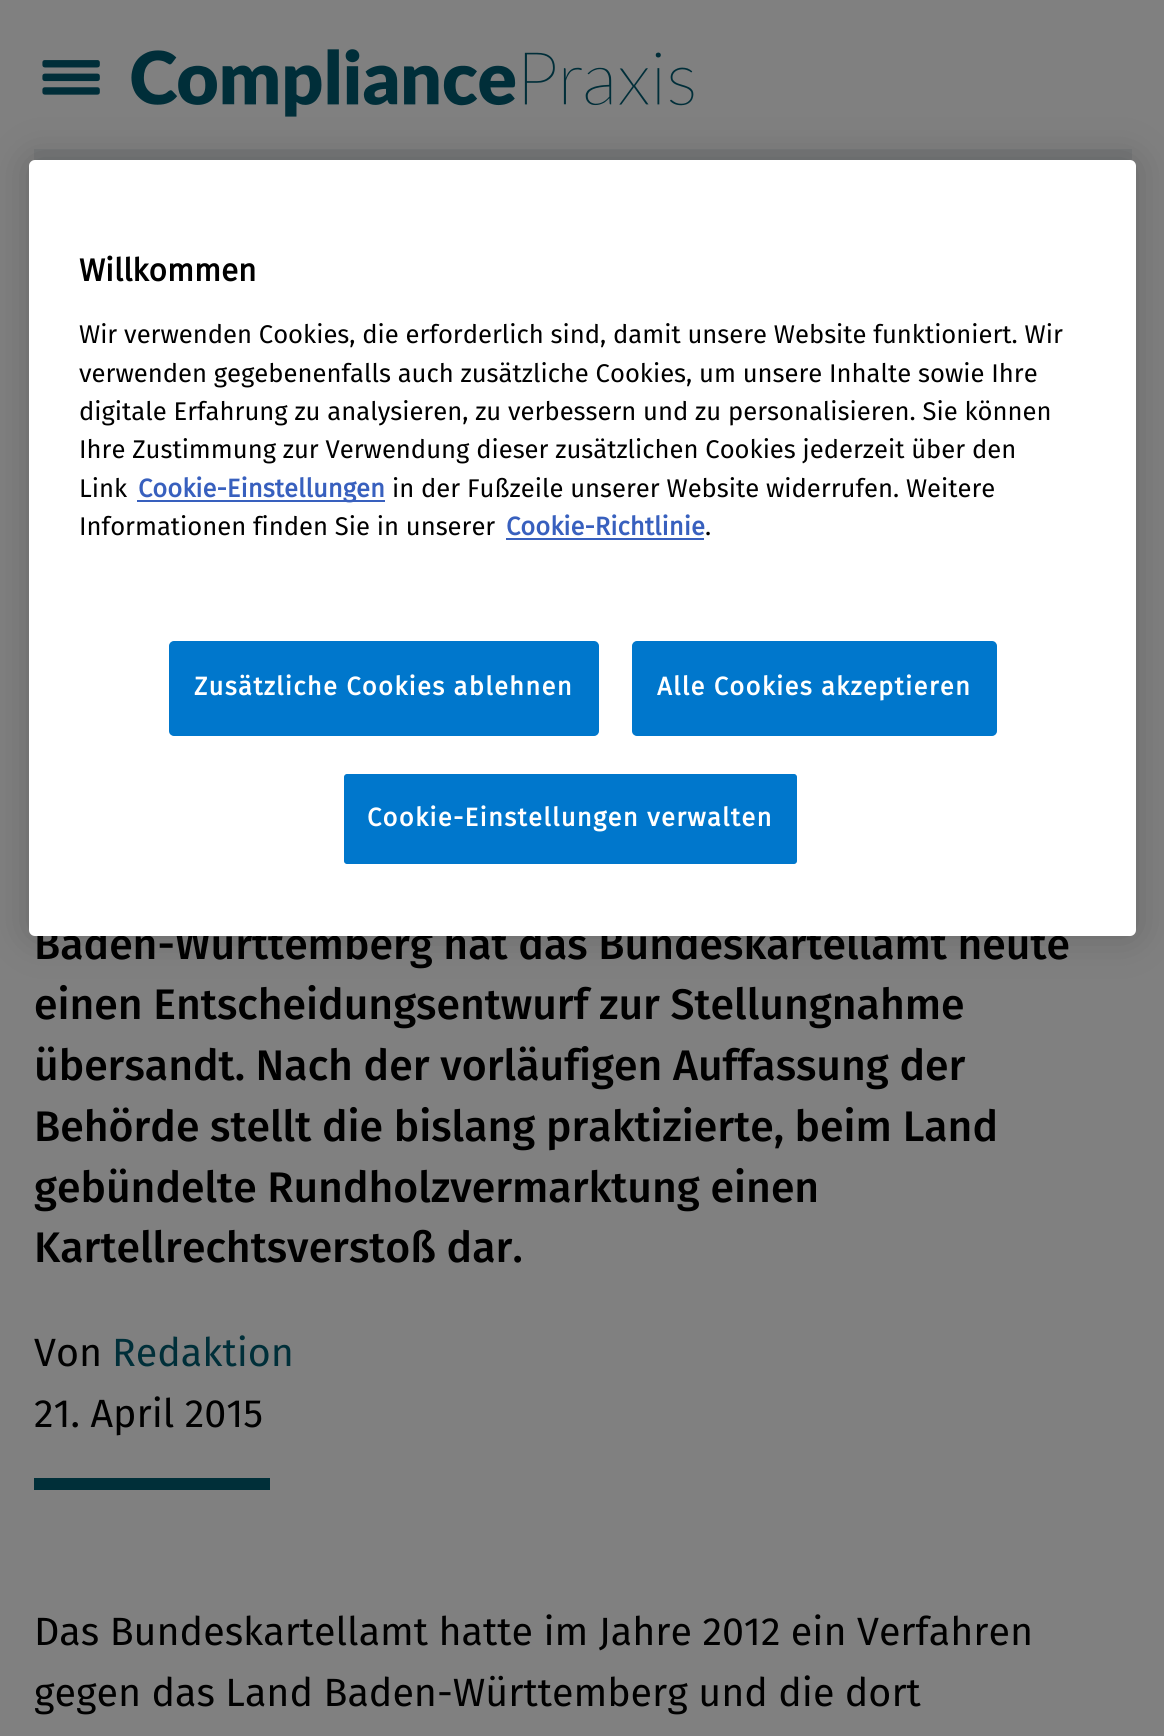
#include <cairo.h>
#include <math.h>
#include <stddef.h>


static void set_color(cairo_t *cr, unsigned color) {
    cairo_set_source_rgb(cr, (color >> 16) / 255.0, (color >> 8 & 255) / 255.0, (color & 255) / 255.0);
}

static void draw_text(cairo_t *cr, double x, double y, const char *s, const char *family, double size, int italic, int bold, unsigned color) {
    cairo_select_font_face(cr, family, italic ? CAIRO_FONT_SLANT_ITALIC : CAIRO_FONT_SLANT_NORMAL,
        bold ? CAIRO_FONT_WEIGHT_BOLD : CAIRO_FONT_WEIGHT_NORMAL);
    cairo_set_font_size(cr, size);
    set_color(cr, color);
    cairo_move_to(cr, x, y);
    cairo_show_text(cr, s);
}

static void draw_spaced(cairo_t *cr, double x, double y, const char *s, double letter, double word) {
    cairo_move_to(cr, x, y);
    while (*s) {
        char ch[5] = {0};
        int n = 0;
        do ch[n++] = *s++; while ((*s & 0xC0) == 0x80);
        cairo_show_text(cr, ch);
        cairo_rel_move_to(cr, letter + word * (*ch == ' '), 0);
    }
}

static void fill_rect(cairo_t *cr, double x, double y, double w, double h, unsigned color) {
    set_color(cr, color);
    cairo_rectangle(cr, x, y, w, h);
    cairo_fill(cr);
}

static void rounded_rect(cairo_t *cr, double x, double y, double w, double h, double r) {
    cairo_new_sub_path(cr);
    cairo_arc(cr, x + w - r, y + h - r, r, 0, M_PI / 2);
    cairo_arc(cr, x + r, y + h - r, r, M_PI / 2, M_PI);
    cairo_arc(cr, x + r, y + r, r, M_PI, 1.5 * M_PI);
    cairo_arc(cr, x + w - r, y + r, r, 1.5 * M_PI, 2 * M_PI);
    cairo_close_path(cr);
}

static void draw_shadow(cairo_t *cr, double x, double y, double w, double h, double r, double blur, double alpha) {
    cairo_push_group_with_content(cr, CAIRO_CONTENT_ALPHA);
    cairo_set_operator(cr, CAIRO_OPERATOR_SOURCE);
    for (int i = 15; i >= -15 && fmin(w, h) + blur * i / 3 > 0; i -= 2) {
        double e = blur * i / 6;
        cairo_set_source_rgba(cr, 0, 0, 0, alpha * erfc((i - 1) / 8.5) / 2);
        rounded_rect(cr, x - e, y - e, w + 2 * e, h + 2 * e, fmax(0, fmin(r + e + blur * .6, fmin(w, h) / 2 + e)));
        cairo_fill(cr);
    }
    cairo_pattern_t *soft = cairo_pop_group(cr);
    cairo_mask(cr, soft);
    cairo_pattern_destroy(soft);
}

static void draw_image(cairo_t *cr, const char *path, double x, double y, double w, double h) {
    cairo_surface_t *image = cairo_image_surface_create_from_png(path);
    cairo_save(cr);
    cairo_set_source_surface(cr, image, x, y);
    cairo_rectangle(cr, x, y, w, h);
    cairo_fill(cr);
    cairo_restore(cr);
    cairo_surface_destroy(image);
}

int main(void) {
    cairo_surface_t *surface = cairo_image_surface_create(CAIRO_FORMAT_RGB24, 1164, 1736);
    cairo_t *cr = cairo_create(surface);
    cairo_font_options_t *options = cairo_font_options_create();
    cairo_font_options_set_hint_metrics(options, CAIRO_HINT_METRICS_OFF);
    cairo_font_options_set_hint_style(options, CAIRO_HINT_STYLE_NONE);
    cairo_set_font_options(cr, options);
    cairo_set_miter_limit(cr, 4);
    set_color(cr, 0x808080);
    cairo_paint(cr);
    fill_rect(cr, 34, 149, 1098, 12, 0x77797A);
    draw_image(cr, "assets/img2.png", 131, 49, 563, 68);
    set_color(cr, 0x000000);
    draw_shadow(cr, 29, 160, 1107, 776, 6, 20, 0.2);
    draw_text(cr, 34, 959, "Baden-Württemberg hat das Bundeskartellamt heute", "Fira Sans Medium", 42.75, 0, 0, 0x000000);
    set_color(cr, 0xFFFFFF);
    rounded_rect(cr, 29, 160, 1107, 776, 6);
    cairo_fill(cr);
    draw_text(cr, 79, 281, "Willkommen", "Fira Sans", 31.5, 0, 1, 0x000000);
    draw_text(cr, 79, 343, "Wir verwenden Cookies, die erforderlich sind, damit unsere Website funktioniert. Wir", "Fira Sans", 25.6, 0, 0, 0x000000);
    draw_text(cr, 79, 382, "verwenden gegebenenfalls auch zusätzliche Cookies, um unsere Inhalte sowie Ihre", "Fira Sans", 25.6, 0, 0, 0x000000);
    draw_text(cr, 79, 420, "digitale Erfahrung zu analysieren, zu verbessern und zu personalisieren. Sie können", "Fira Sans", 25.6, 0, 0, 0x000000);
    draw_text(cr, 79, 458, "Ihre Zustimmung zur Verwendung dieser zusätzlichen Cookies jederzeit über den", "Fira Sans", 25.6, 0, 0, 0x000000);
    draw_text(cr, 79, 497, "Link", "Fira Sans", 25.6, 0, 0, 0x000000);
    fill_rect(cr, 137, 500, 248, 2, 0x3860BE);
    draw_text(cr, 138, 497, "Cookie-Einstellungen", "Fira Sans", 25.6, 0, 1, 0x3860BE);
    draw_text(cr, 392, 497, "in der Fußzeile unserer Website widerrufen. Weitere", "Fira Sans", 25.6, 0, 0, 0x000000);
    draw_text(cr, 79, 535, "Informationen finden Sie in unserer", "Fira Sans", 25.6, 0, 0, 0x000000);
    draw_text(cr, 506, 535, "Cookie-Richtlinie", "Fira Sans", 25.6, 0, 1, 0x3860BE);
    fill_rect(cr, 506, 538, 198, 2, 0x3860BE);
    draw_text(cr, 705, 535, ".", "Fira Sans", 25.6, 0, 0, 0x000000);
    set_color(cr, 0x0077CC);
    rounded_rect(cr, 170, 642, 428, 93, 4);
    cairo_fill_preserve(cr);
    cairo_stroke(cr);
    cairo_select_font_face(cr, "Fira Sans", CAIRO_FONT_SLANT_NORMAL, CAIRO_FONT_WEIGHT_BOLD);
    set_color(cr, 0xFFFFFF);
    draw_spaced(cr, 194, 695, "Zusätzliche Cookies ablehnen", 1.25, 0);
    set_color(cr, 0x0077CC);
    rounded_rect(cr, 633, 642, 363, 93, 4);
    cairo_fill_preserve(cr);
    cairo_stroke(cr);
    set_color(cr, 0xFFFFFF);
    draw_spaced(cr, 657, 695, "Alle Cookies akzeptieren", 1.25, 0);
    set_color(cr, 0x0077CC);
    rounded_rect(cr, 343, 773, 455, 92, 4);
    cairo_fill_preserve(cr);
    set_color(cr, 0xFFFFFF);
    cairo_stroke(cr);
    draw_spaced(cr, 367, 826, "Cookie-Einstellungen verwalten", 1.25, 0);
    draw_image(cr, "assets/img1.png", 42, 60, 58, 35);
    draw_text(cr, 34, 1019, "einen Entscheidungsentwurf zur Stellungnahme", "Fira Sans Medium", 42.75, 0, 0, 0x000000);
    draw_text(cr, 34, 1080, "übersandt. Nach der vorläufigen Auffassung der", "Fira Sans Medium", 42.75, 0, 0, 0x000000);
    draw_text(cr, 34, 1141, "Behörde stellt die bislang praktizierte, beim Land", "Fira Sans Medium", 42.75, 0, 0, 0x000000);
    draw_text(cr, 34, 1202, "gebündelte Rundholzvermarktung einen", "Fira Sans Medium", 42.75, 0, 0, 0x000000);
    draw_text(cr, 34, 1262, "Kartellrechtsverstoß dar.", "Fira Sans Medium", 42.75, 0, 0, 0x000000);
    draw_text(cr, 34, 1366, "Von", "Fira Sans", 39.4, 0, 0, 0x000000);
    draw_text(cr, 112, 1366, "Redaktion", "Fira Sans", 39.4, 0, 0, 0x002F39);
    draw_text(cr, 34, 1427, "21. April 2015", "Fira Sans", 39.4, 0, 0, 0x000000);
    fill_rect(cr, 34, 1478, 236, 12, 0x002F39);
    draw_text(cr, 34, 1645, "Das Bundeskartellamt hatte im Jahre 2012 ein Verfahren", "Fira Sans", 39.4, 0, 0, 0x000000);
    draw_text(cr, 34, 1706, "gegen das Land Baden-Württemberg und die dort", "Fira Sans", 39.4, 0, 0, 0x000000);
    cairo_surface_write_to_png(surface, "output.png");
    cairo_font_options_destroy(options);
    cairo_destroy(cr);
    cairo_surface_destroy(surface);
    return 0;
}
